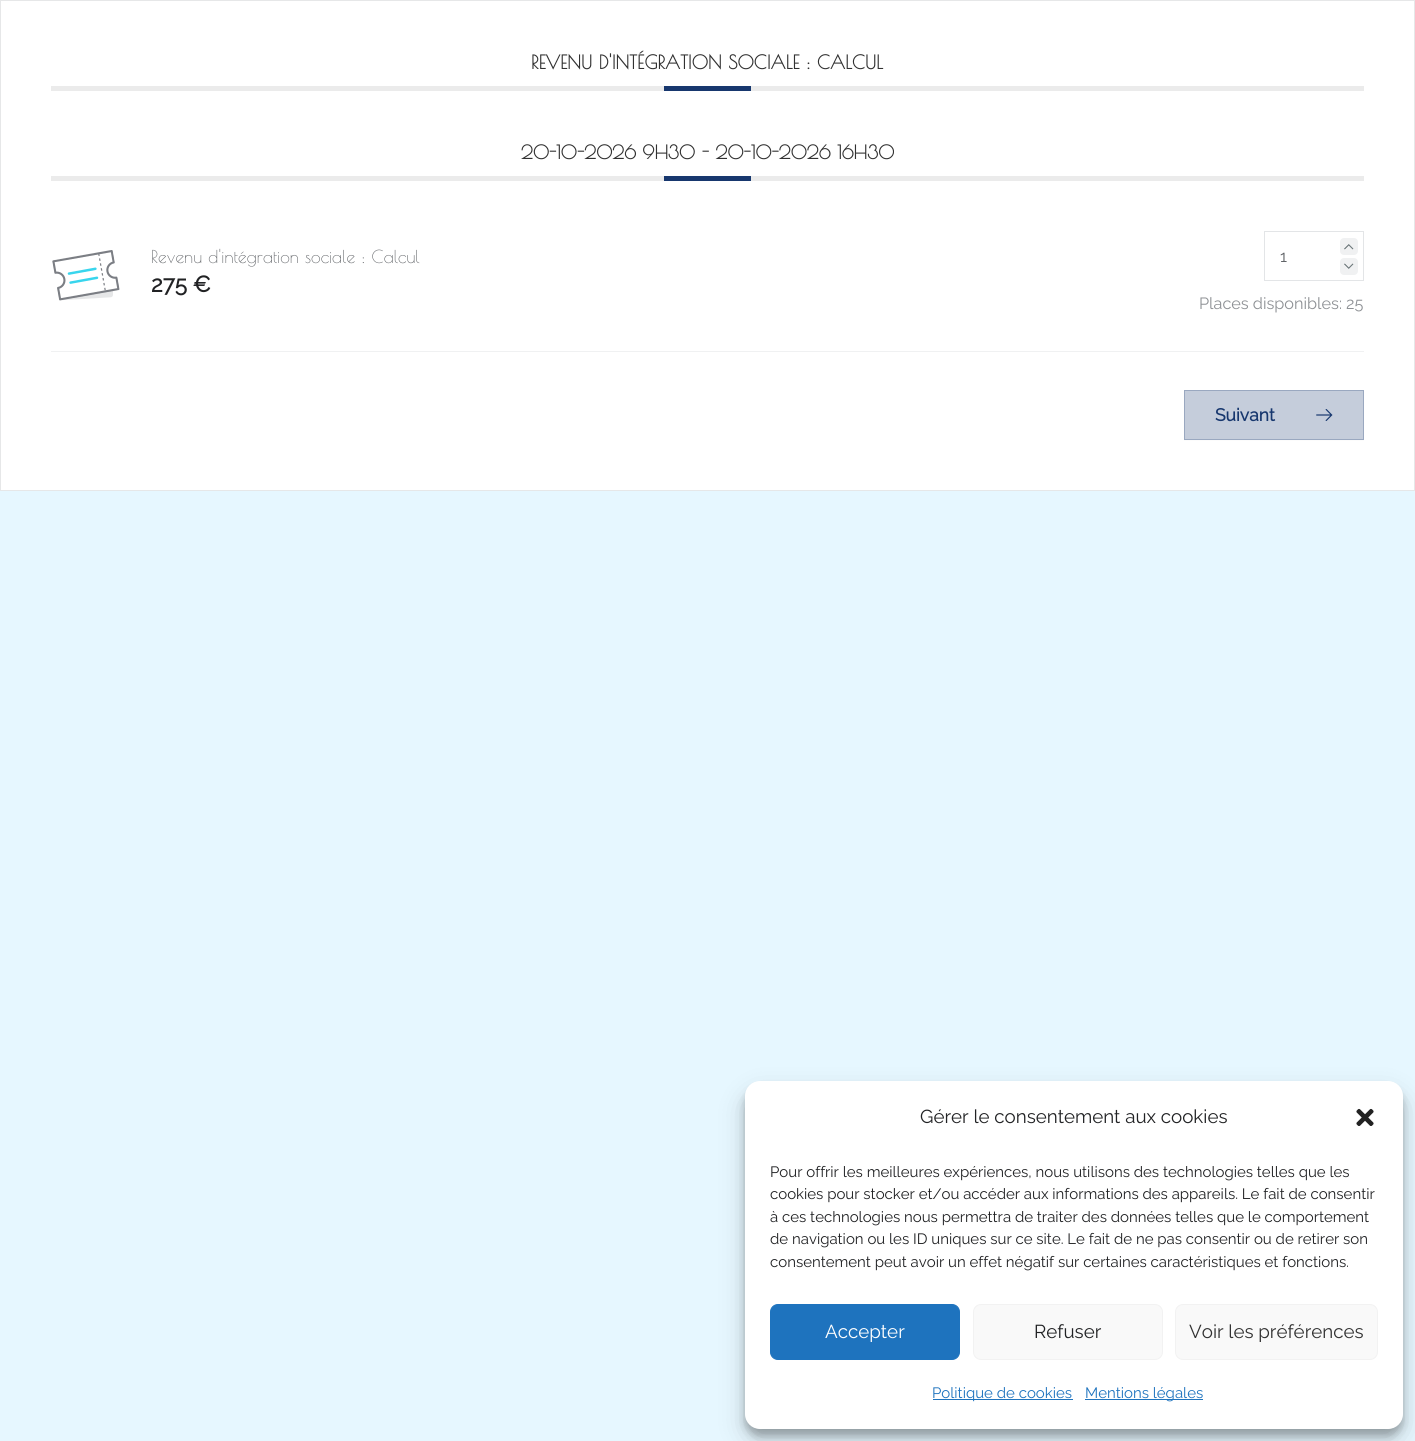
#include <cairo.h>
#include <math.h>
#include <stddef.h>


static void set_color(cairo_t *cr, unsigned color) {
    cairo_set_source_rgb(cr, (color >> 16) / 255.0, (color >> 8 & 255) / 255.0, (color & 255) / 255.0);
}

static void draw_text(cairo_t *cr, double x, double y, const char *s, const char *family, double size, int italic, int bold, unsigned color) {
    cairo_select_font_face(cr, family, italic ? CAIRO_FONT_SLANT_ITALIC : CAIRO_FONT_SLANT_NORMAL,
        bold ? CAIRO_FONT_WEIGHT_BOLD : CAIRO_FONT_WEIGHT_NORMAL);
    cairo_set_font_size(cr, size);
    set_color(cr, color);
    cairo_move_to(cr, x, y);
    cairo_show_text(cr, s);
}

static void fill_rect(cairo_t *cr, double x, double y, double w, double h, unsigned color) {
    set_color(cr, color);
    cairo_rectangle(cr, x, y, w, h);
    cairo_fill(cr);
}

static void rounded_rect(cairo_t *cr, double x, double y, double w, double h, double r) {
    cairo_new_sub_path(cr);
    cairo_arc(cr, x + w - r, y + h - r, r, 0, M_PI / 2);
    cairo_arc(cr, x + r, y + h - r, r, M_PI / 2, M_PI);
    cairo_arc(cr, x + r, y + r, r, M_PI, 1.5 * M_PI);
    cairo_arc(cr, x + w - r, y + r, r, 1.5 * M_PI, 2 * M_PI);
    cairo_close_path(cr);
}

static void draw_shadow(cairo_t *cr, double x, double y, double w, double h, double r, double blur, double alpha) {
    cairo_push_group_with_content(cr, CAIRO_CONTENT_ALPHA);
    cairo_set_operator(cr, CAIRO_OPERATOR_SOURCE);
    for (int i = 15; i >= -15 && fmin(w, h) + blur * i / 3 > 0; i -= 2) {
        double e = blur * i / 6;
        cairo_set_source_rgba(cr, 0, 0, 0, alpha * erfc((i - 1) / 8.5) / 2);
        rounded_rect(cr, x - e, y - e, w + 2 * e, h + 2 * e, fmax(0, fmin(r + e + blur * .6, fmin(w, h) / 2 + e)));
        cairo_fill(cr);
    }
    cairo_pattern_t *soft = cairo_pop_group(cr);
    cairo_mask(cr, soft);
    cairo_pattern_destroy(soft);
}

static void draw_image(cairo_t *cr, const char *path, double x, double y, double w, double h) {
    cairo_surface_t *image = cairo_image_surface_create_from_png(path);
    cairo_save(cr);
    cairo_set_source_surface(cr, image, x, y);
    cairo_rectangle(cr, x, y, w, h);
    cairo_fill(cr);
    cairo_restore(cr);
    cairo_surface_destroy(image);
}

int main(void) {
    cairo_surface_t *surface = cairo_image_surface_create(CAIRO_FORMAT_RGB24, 1415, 1441);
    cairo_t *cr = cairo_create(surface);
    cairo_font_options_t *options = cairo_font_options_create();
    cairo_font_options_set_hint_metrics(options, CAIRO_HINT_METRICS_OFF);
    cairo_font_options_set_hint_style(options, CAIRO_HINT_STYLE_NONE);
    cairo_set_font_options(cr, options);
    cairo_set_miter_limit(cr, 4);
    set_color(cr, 0xE6F7FF);
    cairo_paint(cr);
    set_color(cr, 0xFFFFFF);
    cairo_rectangle(cr, 0.5, 0.5, 1414, 490);
    cairo_fill_preserve(cr);
    set_color(cr, 0xE6E7E8);
    cairo_set_line_width(cr, 1);
    cairo_stroke(cr);
    fill_rect(cr, 51, 86, 1313, 5, 0xEBEBEB);
    draw_text(cr, 531, 69, "REVENU D'INTÉGRATION SOCIALE : CALCUL", "Poiret One", 18.75, 0, 1, 0x313131);
    fill_rect(cr, 664, 86, 87, 5, 0x17376E);
    fill_rect(cr, 51, 176, 1313, 5, 0xEBEBEB);
    draw_text(cr, 521, 159, "20-10-2026 9H30 - 20-10-2026 16H30", "Poiret One", 18.75, 0, 1, 0x313131);
    fill_rect(cr, 664, 176, 87, 5, 0x17376E);
    draw_image(cr, "assets/img1.png", 52, 250, 68, 51);
    draw_text(cr, 151, 263, "Revenu d'intégration sociale : Calcul", "Poiret One", 17.5, 0, 0, 0x606367);
    draw_text(cr, 151, 292, "275 €", "Raleway", 22.5, 0, 1, 0x212224);
    cairo_rectangle(cr, 1264.5, 231.5, 99, 49);
    set_color(cr, 0xE3E5E7);
    cairo_stroke(cr);
    draw_image(cr, "assets/img2.png", 1340, 238, 18, 17);
    draw_text(cr, 1280, 262, "1", "Raleway Thin", 16.25, 0, 0, 0x606367);
    draw_image(cr, "assets/img3.png", 1340, 258, 18, 17);
    draw_text(cr, 1199, 309, "Places disponibles: 25", "Raleway Thin", 16.25, 0, 0, 0x8E9195);
    fill_rect(cr, 51, 351, 1313, 1, 0xF0F1F2);
    set_color(cr, 0xFCFCFC);
    cairo_new_path(cr);
    cairo_move_to(cr, 1184, 440);
    cairo_line_to(cr, 1184, 441);
    cairo_line_to(cr, 1364, 441);
    cairo_line_to(cr, 1364, 391);
    cairo_line_to(cr, 1364, 440);
    cairo_close_path(cr);
    cairo_fill(cr);
    set_color(cr, 0xC5CDDB);
    cairo_rectangle(cr, 1184.5, 390.5, 179, 49);
    cairo_fill_preserve(cr);
    set_color(cr, 0x9AA8C0);
    cairo_stroke(cr);
    draw_text(cr, 1215, 421, "Suivant", "Raleway", 17.5, 0, 1, 0x17376E);
    draw_image(cr, "assets/img4.png", 1316, 409, 17, 12);
    set_color(cr, 0x000000);
    draw_shadow(cr, 745, 1089, 658, 347, 15, 4, 0.23);
    draw_shadow(cr, 745, 1094, 658, 347, 15, 12.5, 0.19);
    set_color(cr, 0xFFFFFF);
    rounded_rect(cr, 745, 1081, 658, 348, 15);
    cairo_fill(cr);
    draw_text(cr, 920, 1123, "Gérer le consentement aux cookies", "Raleway Thin", 18.75, 0, 0, 0x212224);
    draw_image(cr, "assets/img5.png", 1356, 1108, 18, 18);
    draw_text(cr, 770, 1177, "Pour offrir les meilleures expériences, nous utilisons des technologies telles que les", "Raleway Thin", 15, 0, 0, 0x212224);
    draw_text(cr, 770, 1199, "cookies pour stocker et/ou accéder aux informations des appareils. Le fait de consentir", "Raleway Thin", 15, 0, 0, 0x212224);
    draw_text(cr, 770, 1222, "à ces technologies nous permettra de traiter des données telles que le comportement", "Raleway Thin", 15, 0, 0, 0x212224);
    draw_text(cr, 770, 1244, "de navigation ou les ID uniques sur ce site. Le fait de ne pas consentir ou de retirer son", "Raleway Thin", 15, 0, 0, 0x212224);
    draw_text(cr, 770, 1267, "consentement peut avoir un effet négatif sur certaines caractéristiques et fonctions.", "Raleway Thin", 15, 0, 0, 0x212224);
    set_color(cr, 0x1E73BE);
    rounded_rect(cr, 770.5, 1304.5, 189, 55, 7.5);
    cairo_fill_preserve(cr);
    cairo_stroke(cr);
    draw_text(cr, 825, 1338, "Accepter", "Raleway Thin", 18.75, 0, 0, 0xFFFFFF);
    set_color(cr, 0xF9F9F9);
    rounded_rect(cr, 973.5, 1304.5, 189, 55, 7.5);
    cairo_fill_preserve(cr);
    set_color(cr, 0xF2F2F2);
    cairo_stroke(cr);
    draw_text(cr, 1034, 1338, "Refuser", "Raleway Thin", 18.75, 0, 0, 0x212224);
    set_color(cr, 0xF9F9F9);
    rounded_rect(cr, 1175.5, 1304.5, 202, 55, 7.5);
    cairo_fill_preserve(cr);
    set_color(cr, 0xF2F2F2);
    cairo_stroke(cr);
    draw_text(cr, 1189, 1338, "Voir les préférences", "Raleway Thin", 18.75, 0, 0, 0x313131);
    fill_rect(cr, 933, 1399, 140, 1, 0x1E73BE);
    draw_text(cr, 932, 1398, "Politique de cookies", "Raleway Thin", 15, 0, 0, 0x1E73BE);
    fill_rect(cr, 1085, 1399, 118, 1, 0x1E73BE);
    draw_text(cr, 1085, 1398, "Mentions légales", "Raleway Thin", 15, 0, 0, 0x1E73BE);
    cairo_surface_write_to_png(surface, "output.png");
    cairo_font_options_destroy(options);
    cairo_destroy(cr);
    cairo_surface_destroy(surface);
    return 0;
}
